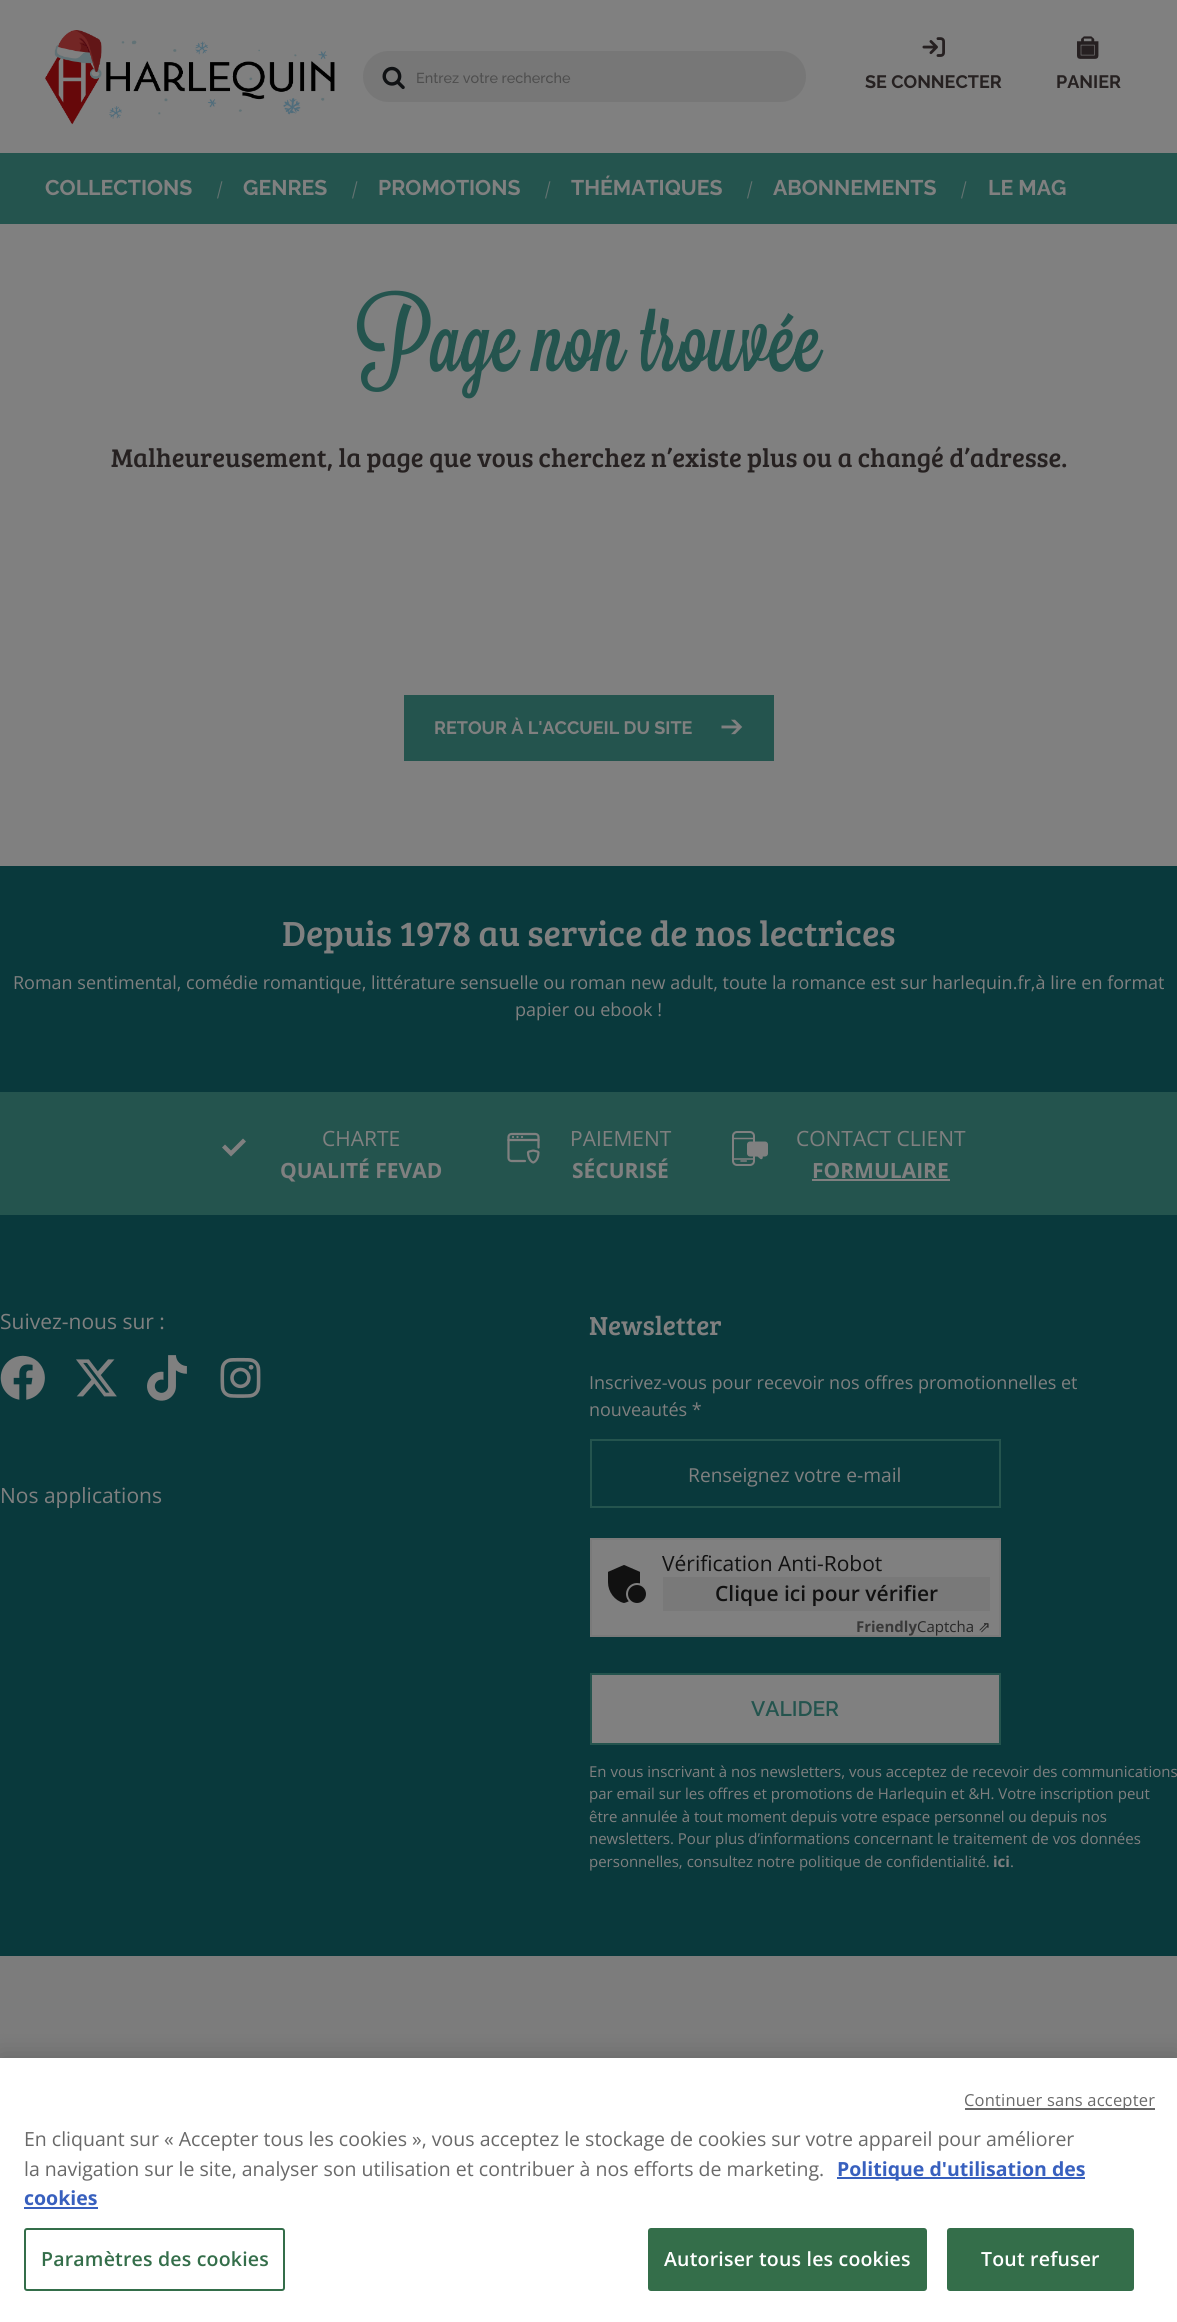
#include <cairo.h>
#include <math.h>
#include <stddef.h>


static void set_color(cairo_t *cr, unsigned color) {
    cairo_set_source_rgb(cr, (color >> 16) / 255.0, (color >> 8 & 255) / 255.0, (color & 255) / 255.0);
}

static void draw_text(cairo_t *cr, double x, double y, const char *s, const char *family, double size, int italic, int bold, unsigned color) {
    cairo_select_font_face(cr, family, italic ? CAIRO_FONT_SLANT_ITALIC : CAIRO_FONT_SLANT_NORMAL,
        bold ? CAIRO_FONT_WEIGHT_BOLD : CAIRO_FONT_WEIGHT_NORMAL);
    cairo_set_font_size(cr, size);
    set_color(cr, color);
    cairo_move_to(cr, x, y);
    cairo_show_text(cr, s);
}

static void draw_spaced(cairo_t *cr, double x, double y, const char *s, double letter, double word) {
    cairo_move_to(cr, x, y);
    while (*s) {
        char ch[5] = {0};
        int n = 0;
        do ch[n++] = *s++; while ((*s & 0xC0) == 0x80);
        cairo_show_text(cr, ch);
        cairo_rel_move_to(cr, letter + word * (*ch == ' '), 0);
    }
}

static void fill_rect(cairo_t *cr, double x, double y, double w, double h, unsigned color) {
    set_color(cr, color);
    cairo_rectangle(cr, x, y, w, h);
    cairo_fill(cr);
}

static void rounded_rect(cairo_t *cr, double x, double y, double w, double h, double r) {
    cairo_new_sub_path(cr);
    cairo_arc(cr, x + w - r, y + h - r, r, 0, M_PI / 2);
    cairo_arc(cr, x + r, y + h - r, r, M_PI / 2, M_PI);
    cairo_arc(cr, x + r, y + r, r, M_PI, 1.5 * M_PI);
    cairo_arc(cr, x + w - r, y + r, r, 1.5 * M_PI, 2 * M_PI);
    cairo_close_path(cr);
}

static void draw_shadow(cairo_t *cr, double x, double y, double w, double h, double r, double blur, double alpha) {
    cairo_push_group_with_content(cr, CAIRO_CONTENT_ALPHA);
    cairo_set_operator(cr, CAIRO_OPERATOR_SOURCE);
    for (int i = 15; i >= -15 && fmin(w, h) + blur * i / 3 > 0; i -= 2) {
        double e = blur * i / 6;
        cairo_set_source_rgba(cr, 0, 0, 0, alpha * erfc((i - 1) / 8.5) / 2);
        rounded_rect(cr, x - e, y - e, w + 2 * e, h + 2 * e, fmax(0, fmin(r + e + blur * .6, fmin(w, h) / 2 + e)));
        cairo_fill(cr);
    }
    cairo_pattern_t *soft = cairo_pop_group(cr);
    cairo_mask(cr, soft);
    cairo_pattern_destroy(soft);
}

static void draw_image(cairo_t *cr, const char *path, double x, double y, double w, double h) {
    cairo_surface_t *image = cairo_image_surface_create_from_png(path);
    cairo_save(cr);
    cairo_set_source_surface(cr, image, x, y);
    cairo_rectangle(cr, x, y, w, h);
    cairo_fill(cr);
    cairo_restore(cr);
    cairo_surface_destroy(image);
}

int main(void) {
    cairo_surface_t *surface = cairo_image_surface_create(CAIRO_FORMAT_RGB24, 1177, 2322);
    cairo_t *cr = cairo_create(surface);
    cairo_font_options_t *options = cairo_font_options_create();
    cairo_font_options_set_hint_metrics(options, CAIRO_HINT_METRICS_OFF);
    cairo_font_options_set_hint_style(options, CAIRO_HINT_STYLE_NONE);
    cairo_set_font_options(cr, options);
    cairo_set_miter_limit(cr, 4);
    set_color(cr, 0x808080);
    cairo_paint(cr);
    draw_image(cr, "assets/img1.png", 45, 30, 290, 95);
    set_color(cr, 0x777777);
    rounded_rect(cr, 363, 51, 443, 51, 25.5);
    cairo_fill(cr);
    draw_image(cr, "assets/img2.png", 382, 66, 23, 24);
    draw_text(cr, 416, 83, "Entrez votre recherche", "Raleway Medium", 14.4, 0, 0, 0x4E4E4E);
    draw_image(cr, "assets/img3.png", 922, 37, 23, 20);
    draw_text(cr, 865, 88, "SE CONNECTER", "Raleway", 18, 0, 1, 0x262121);
    draw_image(cr, "assets/img4.png", 1077, 36, 22, 23);
    draw_text(cr, 1056, 88, "PANIER", "Raleway", 18, 0, 1, 0x262121);
    fill_rect(cr, 0, 153, 1177, 71, 0x24544E);
    draw_text(cr, 45, 195, "COLLECTIONS", "Raleway", 21.25, 0, 1, 0x808080);
    draw_text(cr, 216, 196, "|", "Raleway", 19, 1, 0, 0x647371);
    draw_text(cr, 243, 195, "GENRES", "Raleway", 21.25, 0, 1, 0x808080);
    draw_text(cr, 351, 196, "|", "Raleway", 19, 1, 0, 0x647371);
    draw_text(cr, 378, 195, "PROMOTIONS", "Raleway", 21.25, 0, 1, 0x808080);
    draw_text(cr, 544, 196, "|", "Raleway", 19, 1, 0, 0x647371);
    draw_text(cr, 571, 195, "THÉMATIQUES", "Raleway", 21.25, 0, 1, 0x808080);
    draw_text(cr, 746, 196, "|", "Raleway", 19, 1, 0, 0x647371);
    draw_text(cr, 773, 195, "ABONNEMENTS", "Raleway", 21.25, 0, 1, 0x808080);
    draw_text(cr, 960, 196, "|", "Raleway", 19, 1, 0, 0x647371);
    draw_text(cr, 988, 195, "LE MAG", "Raleway", 21.25, 0, 1, 0x808080);
    draw_text(cr, 357, 371, "Page non trouvée", "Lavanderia", 90, 0, 0, 0x24544E);
    draw_text(cr, 111, 467, "Malheureusement, la page que vous cherchez n’existe plus ou a changé d’adresse.", "Bree Serif", 26.4, 0, 0, 0x262121);
    fill_rect(cr, 404, 695, 370, 66, 0x24544E);
    draw_text(cr, 434, 734, "RETOUR À L'ACCUEIL DU SITE", "Raleway", 18, 0, 1, 0x808080);
    draw_image(cr, "assets/img5.png", 721, 719, 22, 16);
    fill_rect(cr, 0, 866, 1177, 226, 0x09393C);
    draw_text(cr, 282, 946, "Depuis 1978 au service de nos lectrices", "Bree Serif", 36, 0, 0, 0x808080);
    draw_text(cr, 13, 989, "Roman sentimental, comédie romantique, littérature sensuelle ou roman new adult, toute la romance est sur harlequin.fr,à lire en format", "Open Sans", 18, 0, 0, 0x808080);
    draw_text(cr, 515, 1016, "papier ou ebook !", "Open Sans", 18, 0, 0, 0x808080);
    fill_rect(cr, 0, 1092, 1177, 123, 0x24544E);
    set_color(cr, 0x808080);
    cairo_set_fill_rule(cr, CAIRO_FILL_RULE_EVEN_ODD);
    cairo_new_path(cr);
    cairo_move_to(cr, 225, 1144.5);
    cairo_line_to(cr, 222, 1147.5);
    cairo_line_to(cr, 231, 1156.5);
    cairo_line_to(cr, 246, 1141.5);
    cairo_line_to(cr, 243, 1138.5);
    cairo_line_to(cr, 231, 1150.5);
    cairo_close_path(cr);
    cairo_fill(cr);
    draw_text(cr, 322, 1146, "CHARTE", "Open Sans", 21, 0, 0, 0x808080);
    draw_text(cr, 280, 1178, "QUALITÉ FEVAD", "Open Sans", 21, 0, 1, 0x808080);
    draw_image(cr, "assets/img6.png", 507, 1132, 33, 32);
    draw_text(cr, 570, 1146, "PAIEMENT", "Open Sans", 21, 0, 0, 0x808080);
    draw_text(cr, 572, 1178, "SÉCURISÉ", "Open Sans", 21, 0, 1, 0x808080);
    draw_image(cr, "assets/img7.png", 732, 1131, 36, 35);
    draw_text(cr, 796, 1146, "CONTACT CLIENT", "Open Sans", 21, 0, 0, 0x808080);
    draw_text(cr, 812, 1178, "FORMULAIRE", "Open Sans", 21, 0, 1, 0x808080);
    fill_rect(cr, 812, 1179, 138, 2, 0x808080);
    fill_rect(cr, 0, 1215, 1177, 741, 0x09393C);
    draw_text(cr, 0, 1329, "Suivez-nous sur :", "Open Sans", 21, 0, 0, 0x808080);
    draw_image(cr, "assets/img8.png", 0, 1355, 45, 45);
    draw_image(cr, "assets/img9.png", 76, 1359, 41, 38);
    draw_image(cr, "assets/img10.png", 147, 1355, 40, 46);
    draw_image(cr, "assets/img11.png", 220, 1357, 41, 41);
    draw_text(cr, 0, 1503, "Nos applications", "Open Sans", 21, 0, 0, 0x808080);
    draw_text(cr, 589, 1335, "Newsletter", "Bree Serif", 27, 0, 0, 0x808080);
    draw_text(cr, 589, 1389, "Inscrivez-vous pour recevoir nos offres promotionnelles et", "Open Sans", 18, 0, 0, 0x808080);
    draw_text(cr, 589, 1416, "nouveautés *", "Open Sans", 18, 0, 0, 0x808080);
    cairo_rectangle(cr, 591, 1440, 409, 67);
    set_color(cr, 0x24544E);
    cairo_stroke(cr);
    draw_text(cr, 688, 1482, "Renseignez votre e-mail", "Open Sans", 19.25, 0, 0, 0x808080);
    cairo_rectangle(cr, 591, 1539, 409, 97);
    cairo_fill_preserve(cr);
    set_color(cr, 0x7A7A7A);
    cairo_stroke(cr);
    draw_image(cr, "assets/img12.png", 608, 1565, 38, 38);
    draw_text(cr, 662, 1571, "Vérification Anti-Robot", "Open Sans", 21, 0, 0, 0x111111);
    fill_rect(cr, 663, 1577, 327, 34, 0x797979);
    draw_text(cr, 715, 1601, "Clique ici pour vérifier", "Open Sans SemiBold", 21, 0, 0, 0x111111);
    draw_text(cr, 856, 1632, "Friendly", "Open Sans", 15, 0, 1, 0x393939);
    draw_text(cr, 917, 1632, "Captcha", "Open Sans", 15, 0, 0, 0x272727);
    draw_text(cr, 978, 1632, "⇗", "DejaVu Sans", 15, 0, 0, 0x272727);
    set_color(cr, 0x808080);
    cairo_rectangle(cr, 591, 1674, 409, 70);
    cairo_fill_preserve(cr);
    set_color(cr, 0x24544E);
    cairo_stroke(cr);
    draw_text(cr, 751, 1716, "VALIDER", "Raleway SemiBold", 21, 0, 0, 0x24544E);
    draw_text(cr, 589, 1777, "En vous inscrivant à nos newsletters, vous acceptez de recevoir des communications", "Open Sans", 15, 0, 0, 0x808080);
    draw_text(cr, 589, 1799, "par email sur les offres et promotions de Harlequin et &H. Votre inscription peut", "Open Sans", 15, 0, 0, 0x808080);
    draw_text(cr, 589, 1822, "être annulée à tout moment depuis votre espace personnel ou depuis nos", "Open Sans", 15, 0, 0, 0x808080);
    draw_text(cr, 589, 1844, "newsletters. Pour plus d’informations concernant le traitement de vos données", "Open Sans", 15, 0, 0, 0x808080);
    draw_text(cr, 589, 1867, "personnelles, consultez notre politique de confidentialité.", "Open Sans", 15, 0, 0, 0x808080);
    draw_text(cr, 993, 1867, "ici", "Open Sans", 15, 0, 1, 0x808080);
    draw_text(cr, 1010, 1867, ".", "Open Sans", 15, 0, 0, 0x808080);
    fill_rect(cr, 0, 1956, 1177, 102, 0x7C7C7C);
    set_color(cr, 0x000000);
    draw_shadow(cr, 0, 2058, 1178, 264, 0, 13.5, 0.2);
    fill_rect(cr, 0, 2058, 1177, 264, 0xFFFFFF);
    fill_rect(cr, 965, 2108, 190, 2, 0x696969);
    cairo_set_font_size(cr, 16.5);
    draw_spaced(cr, 964, 2106, "Continuer sans accepter", 0.2, 0);
    draw_text(cr, 24, 2146, "En cliquant sur « Accepter tous les cookies », vous acceptez le stockage de cookies sur votre appareil pour améliorer", "Open Sans", 19.5, 0, 0, 0x696969);
    draw_text(cr, 24, 2176, "la navigation sur le site, analyser son utilisation et contribuer à nos efforts de marketing.", "Open Sans", 19.5, 0, 0, 0x696969);
    fill_rect(cr, 837, 2177, 248, 2, 0x3860BE);
    draw_text(cr, 837, 2176, "Politique d'utilisation des", "Open Sans", 19.5, 0, 1, 0x3860BE);
    draw_text(cr, 24, 2205, "cookies", "Open Sans", 19.5, 0, 1, 0x3860BE);
    fill_rect(cr, 24, 2207, 74, 2, 0x3860BE);
    rounded_rect(cr, 25, 2229, 259, 61, 2);
    set_color(cr, 0x346E4A);
    cairo_stroke(cr);
    cairo_select_font_face(cr, "Open Sans SemiBold", CAIRO_FONT_SLANT_NORMAL, CAIRO_FONT_WEIGHT_NORMAL);
    draw_spaced(cr, 41, 2266, "Paramètres des cookies", 0.2, 0);
    rounded_rect(cr, 649, 2229, 277, 61, 2);
    cairo_fill_preserve(cr);
    cairo_stroke(cr);
    set_color(cr, 0xFFFFFF);
    draw_spaced(cr, 664, 2266, "Autoriser tous les cookies", 0.2, 0);
    set_color(cr, 0x346E4A);
    rounded_rect(cr, 948, 2229, 185, 61, 2);
    cairo_fill_preserve(cr);
    cairo_stroke(cr);
    set_color(cr, 0xFFFFFF);
    draw_spaced(cr, 981, 2266, "Tout refuser", 0.2, 0);
    cairo_surface_write_to_png(surface, "output.png");
    cairo_font_options_destroy(options);
    cairo_destroy(cr);
    cairo_surface_destroy(surface);
    return 0;
}
